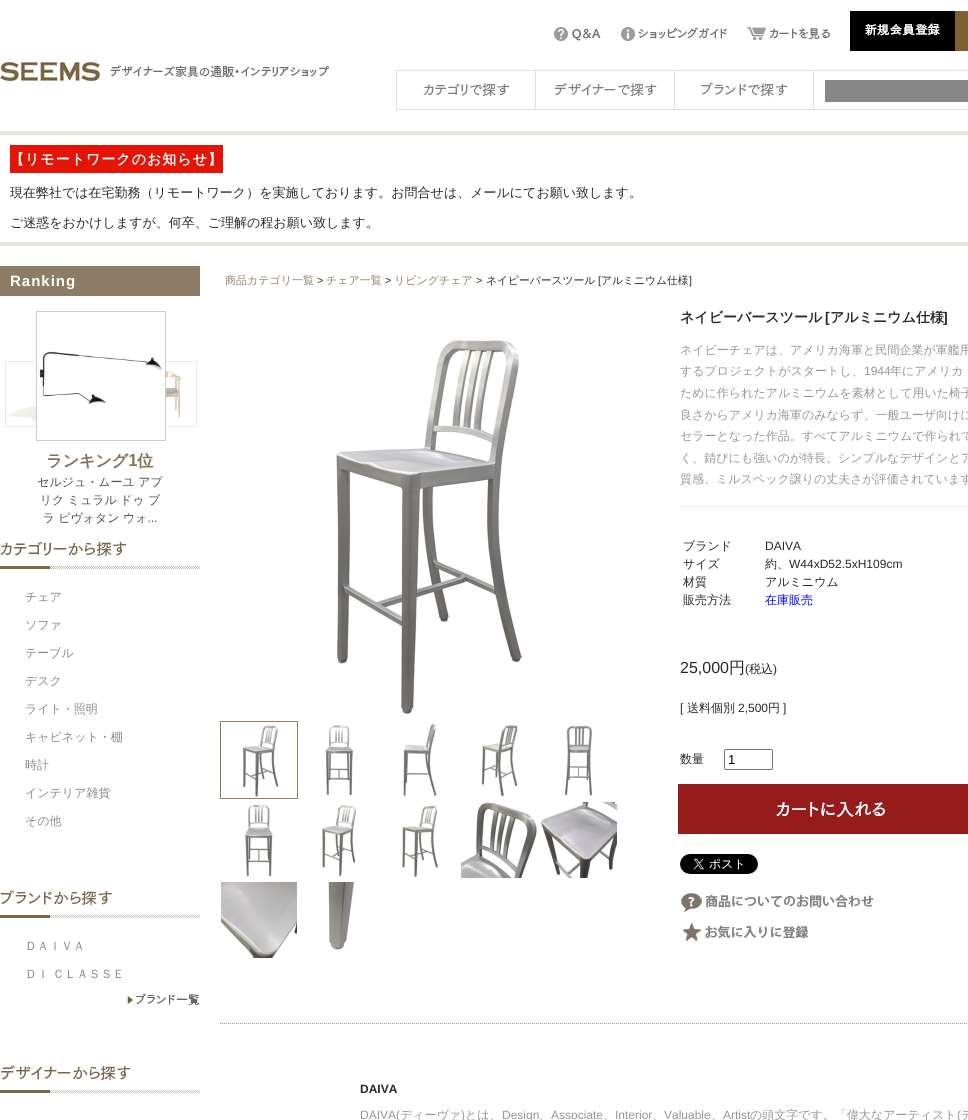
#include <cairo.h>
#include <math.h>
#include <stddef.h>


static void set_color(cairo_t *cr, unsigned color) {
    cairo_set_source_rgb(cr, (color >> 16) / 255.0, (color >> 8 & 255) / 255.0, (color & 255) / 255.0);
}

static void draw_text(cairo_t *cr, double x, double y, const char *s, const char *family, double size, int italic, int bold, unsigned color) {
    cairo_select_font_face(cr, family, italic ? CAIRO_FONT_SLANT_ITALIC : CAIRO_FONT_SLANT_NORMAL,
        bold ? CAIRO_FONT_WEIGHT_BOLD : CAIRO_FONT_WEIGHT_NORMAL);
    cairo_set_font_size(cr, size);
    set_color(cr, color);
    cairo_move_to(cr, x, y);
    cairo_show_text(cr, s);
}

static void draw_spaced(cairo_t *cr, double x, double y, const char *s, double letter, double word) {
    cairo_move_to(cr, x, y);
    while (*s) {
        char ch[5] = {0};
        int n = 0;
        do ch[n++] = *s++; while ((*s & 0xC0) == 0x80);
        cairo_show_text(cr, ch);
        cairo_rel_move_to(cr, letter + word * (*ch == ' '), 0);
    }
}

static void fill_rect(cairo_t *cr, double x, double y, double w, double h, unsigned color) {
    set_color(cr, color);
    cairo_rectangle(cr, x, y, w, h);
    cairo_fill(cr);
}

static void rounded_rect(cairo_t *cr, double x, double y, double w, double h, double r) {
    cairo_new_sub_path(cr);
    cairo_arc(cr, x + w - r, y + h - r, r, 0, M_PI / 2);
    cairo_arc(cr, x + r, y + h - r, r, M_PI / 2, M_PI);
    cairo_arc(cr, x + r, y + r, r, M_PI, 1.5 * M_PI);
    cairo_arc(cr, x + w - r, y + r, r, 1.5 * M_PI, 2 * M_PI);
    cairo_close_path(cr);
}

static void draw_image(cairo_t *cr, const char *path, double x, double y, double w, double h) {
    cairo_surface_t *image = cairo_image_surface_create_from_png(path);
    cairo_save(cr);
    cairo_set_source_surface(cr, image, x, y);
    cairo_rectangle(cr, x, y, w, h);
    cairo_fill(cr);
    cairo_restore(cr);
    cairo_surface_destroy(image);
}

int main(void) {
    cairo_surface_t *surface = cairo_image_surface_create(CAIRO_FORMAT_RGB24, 968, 1120);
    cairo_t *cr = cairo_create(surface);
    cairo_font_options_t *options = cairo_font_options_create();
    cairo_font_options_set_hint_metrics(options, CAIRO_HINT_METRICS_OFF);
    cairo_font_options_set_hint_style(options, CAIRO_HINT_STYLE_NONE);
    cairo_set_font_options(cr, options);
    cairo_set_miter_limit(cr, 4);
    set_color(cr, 0xFFFFFF);
    cairo_paint(cr);
    draw_image(cr, "assets/img1.png", 554, 27, 47, 14);
    draw_image(cr, "assets/img2.png", 621, 27, 106, 14);
    draw_image(cr, "assets/img3.png", 747, 27, 83, 13);
    draw_image(cr, "assets/img4.png", 850, 11, 105, 40);
    fill_rect(cr, 955, 11, 13, 40, 0x805F32);
    draw_image(cr, "assets/img5.png", 0, 62, 100, 19);
    draw_image(cr, "assets/img6.png", 110, 65, 219, 13);
    fill_rect(cr, 396, 70, 572, 1, 0xE1DFDF);
    fill_rect(cr, 396, 109, 572, 1, 0xE1DFDF);
    fill_rect(cr, 396, 70, 1, 40, 0xE1DFDF);
    fill_rect(cr, 535, 71, 1, 38, 0xE1DFDF);
    draw_image(cr, "assets/img7.png", 423, 83, 87, 14);
    fill_rect(cr, 674, 71, 1, 38, 0xE1DFDF);
    draw_image(cr, "assets/img8.png", 554, 83, 103, 14);
    fill_rect(cr, 813, 71, 1, 38, 0xE1DFDF);
    draw_image(cr, "assets/img9.png", 701, 82, 87, 15);
    fill_rect(cr, 825, 80, 143, 22, 0x878787);
    fill_rect(cr, 0, 131, 968, 4, 0xE7E4DE);
    fill_rect(cr, 0, 242, 968, 4, 0xE7E4DE);
    fill_rect(cr, 10, 145, 213, 28, 0xE41506);
    cairo_select_font_face(cr, "WenQuanYi Zen Hei", CAIRO_FONT_SLANT_NORMAL, CAIRO_FONT_WEIGHT_BOLD);
    cairo_set_font_size(cr, 14);
    set_color(cr, 0xFFFFFF);
    draw_spaced(cr, 10, 164, "【リモートワークのお知らせ】", 1, 0);
    draw_text(cr, 10, 197, "現在弊社では在宅勤務（リモートワーク）を実施しております。お問合せは、メールにてお願い致します。", "WenQuanYi Zen Hei Medium", 13, 0, 0, 0x282828);
    draw_text(cr, 10, 227, "ご迷惑をおかけしますが、何卒、ご理解の程お願い致します。", "WenQuanYi Zen Hei Medium", 13, 0, 0, 0x282828);
    fill_rect(cr, 0, 266, 200, 30, 0x8D7C66);
    cairo_select_font_face(cr, "Liberation Sans", CAIRO_FONT_SLANT_NORMAL, CAIRO_FONT_WEIGHT_BOLD);
    cairo_set_font_size(cr, 15);
    set_color(cr, 0xFFFFFF);
    draw_spaced(cr, 10, 286, "Ranking", 1, 0);
    draw_image(cr, "assets/img10.png", 5, 311, 192, 213);
    draw_image(cr, "assets/img11.png", 0, 541, 200, 28);
    draw_text(cr, 25, 601, "チェア", "WenQuanYi Zen Hei Medium", 12, 0, 0, 0x8B8987);
    draw_text(cr, 25, 629, "ソファ", "WenQuanYi Zen Hei Medium", 12, 0, 0, 0x8B8987);
    draw_text(cr, 25, 657, "テーブル", "WenQuanYi Zen Hei Medium", 12, 0, 0, 0x8B8987);
    draw_text(cr, 25, 685, "デスク", "WenQuanYi Zen Hei Medium", 12, 0, 0, 0x8B8987);
    draw_text(cr, 25, 713, "ライト・照明", "WenQuanYi Zen Hei Medium", 12, 0, 0, 0x8B8987);
    draw_text(cr, 25, 741, "キャビネット・棚", "WenQuanYi Zen Hei Medium", 12, 0, 0, 0x8B8987);
    draw_text(cr, 25, 769, "時計", "WenQuanYi Zen Hei Medium", 12, 0, 0, 0x8B8987);
    draw_text(cr, 25, 797, "インテリア雑貨", "WenQuanYi Zen Hei Medium", 12, 0, 0, 0x8B8987);
    draw_text(cr, 25, 825, "その他", "WenQuanYi Zen Hei Medium", 12, 0, 0, 0x8B8987);
    draw_image(cr, "assets/img12.png", 0, 890, 200, 28);
    draw_text(cr, 25, 950, "ＤＡＩＶＡ", "WenQuanYi Zen Hei Medium", 12, 0, 0, 0x8B8987);
    draw_text(cr, 25, 978, "ＤＩ ＣＬＡＳＳＥ", "WenQuanYi Zen Hei Medium", 12, 0, 0, 0x8B8987);
    draw_image(cr, "assets/img13.png", 127, 993, 73, 12);
    draw_image(cr, "assets/img14.png", 0, 1065, 200, 28);
    draw_text(cr, 225, 284, "商品カテゴリ一覧", "WenQuanYi Zen Hei Medium", 11, 0, 0, 0x8D7D62);
    draw_text(cr, 317, 284, ">", "Liberation Sans", 10.75, 0, 0, 0x282828);
    draw_text(cr, 326, 284, "チェア一覧", "WenQuanYi Zen Hei Medium", 11, 0, 0, 0x8D7D62);
    draw_text(cr, 385, 284, ">", "Liberation Sans", 10.75, 0, 0, 0x282828);
    draw_text(cr, 394, 284, "リビングチェア", "WenQuanYi Zen Hei Medium", 11, 0, 0, 0x8D7D62);
    draw_text(cr, 476, 284, ">", "Liberation Sans", 10.75, 0, 0, 0x282828);
    draw_text(cr, 486, 284, "ネイビーバースツール", "WenQuanYi Zen Hei Medium", 10.75, 0, 0, 0x282828);
    draw_text(cr, 598, 284, "[", "Liberation Sans", 10.75, 0, 0, 0x282828);
    draw_text(cr, 601, 284, "アルミニウム仕様", "WenQuanYi Zen Hei Medium", 10.75, 0, 0, 0x282828);
    draw_text(cr, 689, 284, "]", "Liberation Sans", 10.75, 0, 0, 0x282828);
    draw_image(cr, "assets/img15.png", 336, 340, 186, 374);
    draw_text(cr, 680, 322, "ネイビーバースツール", "WenQuanYi Zen Hei", 14, 0, 1, 0x282828);
    draw_text(cr, 825, 322, "[", "Liberation Sans", 14, 0, 1, 0x282828);
    cairo_save(cr);
    cairo_rectangle(cr, 220, 311, 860, 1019);
    cairo_clip(cr);
    draw_text(cr, 830, 322, "アルミニウム仕様", "WenQuanYi Zen Hei", 14, 0, 1, 0x282828);
    cairo_restore(cr);
    draw_text(cr, 943, 322, "]", "Liberation Sans", 14, 0, 1, 0x282828);
    draw_text(cr, 680, 354, "ネイビーチェアは、アメリカ海軍と民間企業が軍艦用", "WenQuanYi Zen Hei Medium", 12, 0, 0, 0x969696);
    draw_text(cr, 680, 375, "するプロジェクトがスタートし、", "WenQuanYi Zen Hei Medium", 12, 0, 0, 0x969696);
    draw_text(cr, 864, 375, "1944", "Liberation Sans", 12, 0, 0, 0x969696);
    draw_text(cr, 890, 375, "年にアメリカ", "WenQuanYi Zen Hei Medium", 12, 0, 0, 0x969696);
    draw_text(cr, 680, 397, "ために作られたアルミニウムを素材として用いた椅子", "WenQuanYi Zen Hei Medium", 12, 0, 0, 0x969696);
    draw_text(cr, 680, 419, "良さからアメリカ海軍のみならず、一般ユーザ向けに", "WenQuanYi Zen Hei Medium", 12, 0, 0, 0x969696);
    draw_text(cr, 680, 440, "セラーとなった作品。すべてアルミニウムで作られて", "WenQuanYi Zen Hei Medium", 12, 0, 0, 0x969696);
    draw_text(cr, 680, 462, "く、錆びにも強いのが特長。シンプルなデザインとア", "WenQuanYi Zen Hei Medium", 12, 0, 0, 0x969696);
    draw_text(cr, 680, 483, "質感、ミルスペック譲りの丈夫さが評価されています", "WenQuanYi Zen Hei Medium", 12, 0, 0, 0x969696);
    cairo_new_path(cr);
    cairo_move_to(cr, 680, 506.5);
    cairo_line_to(cr, 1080, 506.5);
    set_color(cr, 0xE1DFDF);
    cairo_set_line_width(cr, 1);
    cairo_set_dash(cr, (double[]){1, 1}, 2, 0);
    cairo_stroke(cr);
    draw_text(cr, 683, 550, "ブランド", "WenQuanYi Zen Hei Medium", 12, 0, 0, 0x282828);
    draw_text(cr, 765, 550, "DAIVA", "Liberation Sans", 12, 0, 0, 0x282828);
    draw_text(cr, 683, 568, "サイズ", "WenQuanYi Zen Hei Medium", 12, 0, 0, 0x282828);
    draw_text(cr, 765, 568, "約、", "WenQuanYi Zen Hei Medium", 12, 0, 0, 0x282828);
    draw_text(cr, 789, 568, "W44xD52.5xH109cm", "Liberation Sans", 12, 0, 0, 0x282828);
    draw_text(cr, 683, 586, "材質", "WenQuanYi Zen Hei Medium", 12, 0, 0, 0x282828);
    draw_text(cr, 765, 586, "アルミニウム", "WenQuanYi Zen Hei Medium", 12, 0, 0, 0x282828);
    draw_text(cr, 683, 604, "販売方法", "WenQuanYi Zen Hei Medium", 12, 0, 0, 0x282828);
    draw_text(cr, 765, 604, "在庫販売", "WenQuanYi Zen Hei Medium", 12, 0, 0, 0x0000FF);
    draw_text(cr, 680, 673, "25,000", "Liberation Sans", 16, 0, 0, 0x282828);
    draw_text(cr, 729, 673, "円", "WenQuanYi Zen Hei Medium", 16, 0, 0, 0x282828);
    draw_text(cr, 745, 673, "(", "Liberation Sans", 12, 0, 0, 0x282828);
    draw_text(cr, 749, 673, "税込", "WenQuanYi Zen Hei Medium", 12, 0, 0, 0x282828);
    draw_text(cr, 773, 673, ")", "Liberation Sans", 12, 0, 0, 0x282828);
    draw_text(cr, 680, 712, "[", "Liberation Sans", 12, 0, 0, 0x282828);
    draw_text(cr, 687, 712, "送料個別", "WenQuanYi Zen Hei Medium", 12, 0, 0, 0x282828);
    draw_text(cr, 738, 712, "2,500", "Liberation Sans", 12, 0, 0, 0x282828);
    draw_text(cr, 768, 712, "円", "WenQuanYi Zen Hei Medium", 12, 0, 0, 0x282828);
    draw_text(cr, 783, 712, "]", "Liberation Sans", 12, 0, 0, 0x282828);
    draw_text(cr, 680, 763, "数量", "WenQuanYi Zen Hei Medium", 12, 0, 0, 0x282828);
    rounded_rect(cr, 724.5, 749.5, 48, 20, 1.5);
    set_color(cr, 0x767676);
    cairo_set_dash(cr, NULL, 0, 0);
    cairo_stroke(cr);
    draw_text(cr, 728, 764, "1", "Liberation Sans", 13, 0, 0, 0x000000);
    draw_image(cr, "assets/img16.png", 678, 784, 290, 50);
    draw_image(cr, "assets/img17.png", 680, 854, 78, 20);
    draw_image(cr, "assets/img18.png", 681, 893, 193, 19);
    draw_image(cr, "assets/img19.png", 683, 923, 125, 18);
    cairo_rectangle(cr, 220.5, 721.5, 77, 77);
    set_color(cr, 0x998057);
    cairo_stroke(cr);
    draw_image(cr, "assets/img20.png", 242, 725, 37, 72);
    draw_image(cr, "assets/img21.png", 325, 725, 29, 72);
    draw_image(cr, "assets/img22.png", 401, 723, 36, 74);
    draw_image(cr, "assets/img23.png", 479, 723, 39, 74);
    draw_image(cr, "assets/img24.png", 564, 723, 30, 74);
    draw_image(cr, "assets/img25.png", 245, 804, 28, 74);
    draw_image(cr, "assets/img26.png", 321, 802, 36, 76);
    draw_image(cr, "assets/img27.png", 399, 802, 39, 75);
    draw_image(cr, "assets/img28.png", 461, 802, 76, 76);
    draw_image(cr, "assets/img29.png", 541, 802, 76, 76);
    draw_image(cr, "assets/img30.png", 221, 882, 76, 76);
    draw_image(cr, "assets/img31.png", 328, 882, 26, 71);
    cairo_new_path(cr);
    cairo_move_to(cr, 220, 1023.5);
    cairo_line_to(cr, 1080, 1023.5);
    set_color(cr, 0x999999);
    cairo_set_dash(cr, (double[]){1, 1}, 2, 0);
    cairo_stroke(cr);
    draw_text(cr, 360, 1093, "DAIVA", "Liberation Sans", 12, 0, 1, 0x282828);
    draw_text(cr, 360, 1119, "DAIVA(", "Liberation Sans", 12, 0, 0, 0x969696);
    draw_text(cr, 400, 1119, "ディーヴァ", "WenQuanYi Zen Hei Medium", 12, 0, 0, 0x969696);
    draw_text(cr, 461, 1119, ")", "Liberation Sans", 12, 0, 0, 0x969696);
    draw_text(cr, 465, 1119, "とは、", "WenQuanYi Zen Hei Medium", 12, 0, 0, 0x969696);
    draw_text(cr, 502, 1119, "Design", "Liberation Sans", 12, 0, 0, 0x969696);
    draw_text(cr, 539, 1119, "、", "WenQuanYi Zen Hei Medium", 12, 0, 0, 0x969696);
    draw_text(cr, 551, 1119, "Associate", "Liberation Sans", 12, 0, 0, 0x969696);
    draw_text(cr, 603, 1119, "、", "WenQuanYi Zen Hei Medium", 12, 0, 0, 0x969696);
    draw_text(cr, 615, 1119, "Interior", "Liberation Sans", 12, 0, 0, 0x969696);
    draw_text(cr, 652, 1119, "、", "WenQuanYi Zen Hei Medium", 12, 0, 0, 0x969696);
    draw_text(cr, 664, 1119, "Valuable", "Liberation Sans", 12, 0, 0, 0x969696);
    draw_text(cr, 711, 1119, "、", "WenQuanYi Zen Hei Medium", 12, 0, 0, 0x969696);
    draw_text(cr, 723, 1119, "Artist", "Liberation Sans", 12, 0, 0, 0x969696);
    draw_text(cr, 750, 1119, "の頭文字です。「偉大なアーティスト", "WenQuanYi Zen Hei Medium", 12, 0, 0, 0x969696);
    draw_text(cr, 957, 1119, "(", "Liberation Sans", 12, 0, 0, 0x969696);
    draw_text(cr, 961, 1119, "デ", "WenQuanYi Zen Hei Medium", 12, 0, 0, 0x969696);
    cairo_surface_write_to_png(surface, "output.png");
    cairo_font_options_destroy(options);
    cairo_destroy(cr);
    cairo_surface_destroy(surface);
    return 0;
}
